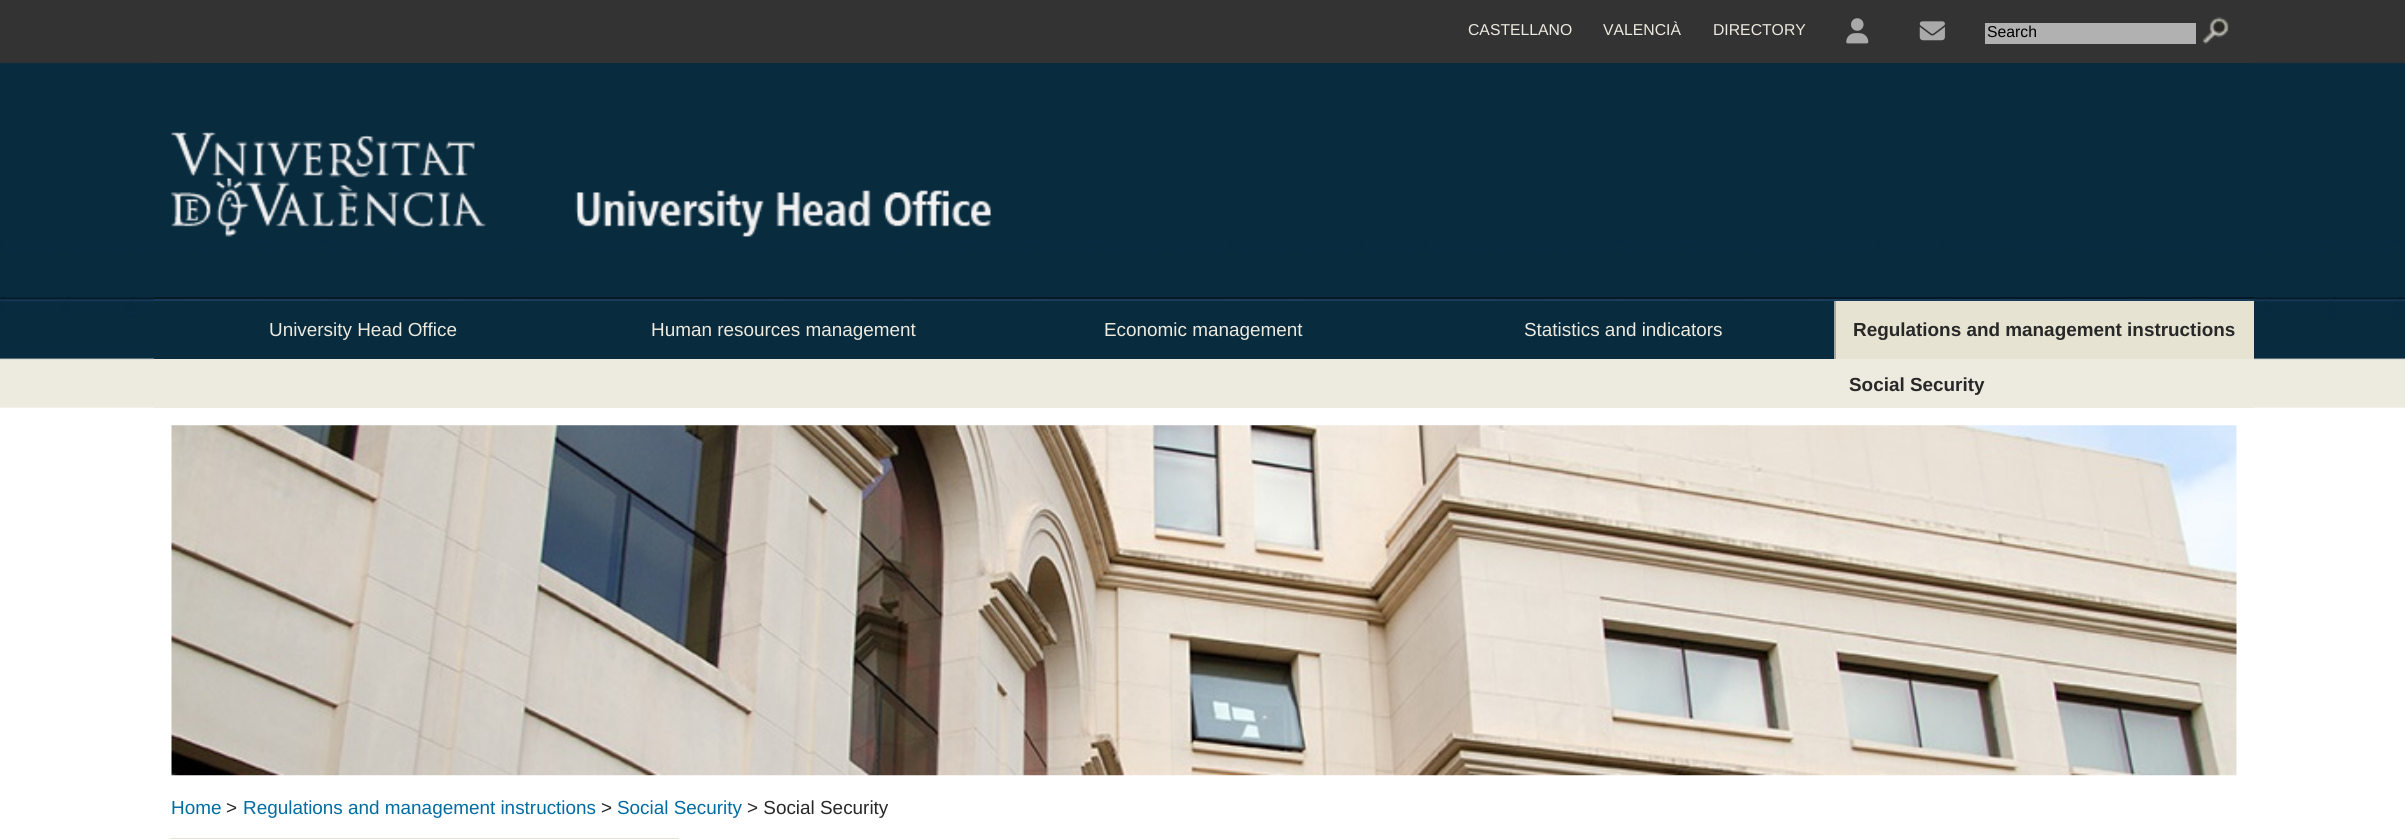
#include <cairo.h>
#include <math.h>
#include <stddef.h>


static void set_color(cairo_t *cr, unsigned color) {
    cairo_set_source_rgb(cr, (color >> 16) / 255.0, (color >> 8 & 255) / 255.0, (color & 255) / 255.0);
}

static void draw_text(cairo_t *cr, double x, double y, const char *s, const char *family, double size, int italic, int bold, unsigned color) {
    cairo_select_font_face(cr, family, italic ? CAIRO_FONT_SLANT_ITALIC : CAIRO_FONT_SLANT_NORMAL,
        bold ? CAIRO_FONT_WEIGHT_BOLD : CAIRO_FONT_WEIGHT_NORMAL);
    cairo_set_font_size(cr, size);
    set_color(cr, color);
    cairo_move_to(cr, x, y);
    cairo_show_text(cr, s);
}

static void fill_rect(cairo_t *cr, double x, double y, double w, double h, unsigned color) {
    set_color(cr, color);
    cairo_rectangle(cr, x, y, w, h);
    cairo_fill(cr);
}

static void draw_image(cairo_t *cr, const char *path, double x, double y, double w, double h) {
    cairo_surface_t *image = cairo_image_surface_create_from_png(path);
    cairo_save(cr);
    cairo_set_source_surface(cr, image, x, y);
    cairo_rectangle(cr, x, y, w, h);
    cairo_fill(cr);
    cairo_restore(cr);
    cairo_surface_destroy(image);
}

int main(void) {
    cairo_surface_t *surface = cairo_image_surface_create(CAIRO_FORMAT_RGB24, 2405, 839);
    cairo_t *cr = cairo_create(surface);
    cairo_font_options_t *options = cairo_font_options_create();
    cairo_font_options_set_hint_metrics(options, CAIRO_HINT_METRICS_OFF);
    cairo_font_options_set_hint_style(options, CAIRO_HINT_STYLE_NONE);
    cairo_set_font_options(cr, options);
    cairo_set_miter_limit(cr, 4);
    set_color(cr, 0xFFFFFF);
    cairo_paint(cr);
    draw_image(cr, "assets/img1.png", 0, 0, 2405, 408);
    fill_rect(cr, 154, 62, 2100, 1, 0x333333);
    draw_text(cr, 1468, 35, "CASTELLANO", "Liberation Sans", 15.75, 0, 0, 0xEDEADF);
    draw_text(cr, 1603, 35, "VALENCIÀ", "Liberation Sans", 15.75, 0, 0, 0xEDEADF);
    draw_text(cr, 1713, 35, "DIRECTORY", "Liberation Sans", 15.75, 0, 0, 0xEDEADF);
    draw_image(cr, "assets/img2.png", 1846, 18, 23, 26);
    draw_image(cr, "assets/img3.png", 1919, 21, 26, 20);
    fill_rect(cr, 1985, 23, 211, 21, 0xB1B1B1);
    draw_text(cr, 1987, 37, "Search", "Liberation Sans", 15.75, 0, 0, 0x000000);
    draw_image(cr, "assets/img4.png", 2202, 17, 27, 27);
    fill_rect(cr, 154, 63, 2100, 1, 0x082B3E);
    fill_rect(cr, 154, 297, 2100, 2, 0x061A25);
    draw_image(cr, "assets/img5.png", 170, 132, 822, 105);
    fill_rect(cr, 154, 301, 1680, 58, 0x082B3E);
    fill_rect(cr, 154, 299, 2100, 2, 0x1A3B5A);
    draw_text(cr, 269, 336, "University Head Office", "Liberation Sans", 18.9, 0, 0, 0xEDEADF);
    draw_text(cr, 651, 336, "Human resources management", "Liberation Sans", 18.9, 0, 0, 0xEDEADF);
    draw_text(cr, 1104, 336, "Economic management", "Liberation Sans", 18.9, 0, 0, 0xEDEADF);
    draw_text(cr, 1524, 336, "Statistics and indicators", "Liberation Sans", 18.9, 0, 0, 0xEDEADF);
    fill_rect(cr, 1836, 301, 418, 58, 0xE6E3D2);
    fill_rect(cr, 1834, 301, 2, 58, 0xA6A69C);
    draw_text(cr, 1853, 336, "Regulations and management instructions", "Liberation Sans", 18.9, 0, 1, 0x282828);
    fill_rect(cr, 154, 359, 2100, 49, 0xEDEADF);
    draw_text(cr, 1849, 391, "Social Security", "Liberation Sans", 18.9, 0, 1, 0x282828);
    draw_image(cr, "assets/img6.png", 171, 425, 2066, 351);
    draw_text(cr, 171, 814, "Home", "Liberation Sans", 18.9, 0, 0, 0x016CA2);
    draw_text(cr, 226, 814, ">", "Liberation Sans", 18.9, 0, 0, 0x282828);
    draw_text(cr, 243, 814, "Regulations and management instructions", "Liberation Sans", 18.9, 0, 0, 0x016CA2);
    draw_text(cr, 601, 814, ">", "Liberation Sans", 18.9, 0, 0, 0x282828);
    draw_text(cr, 617, 814, "Social Security", "Liberation Sans", 18.9, 0, 0, 0x016CA2);
    draw_text(cr, 747, 814, "> Social Security", "Liberation Sans", 18.9, 0, 0, 0x282828);
    fill_rect(cr, 170, 838, 509, 1, 0xE6E3D2);
    cairo_surface_write_to_png(surface, "output.png");
    cairo_font_options_destroy(options);
    cairo_destroy(cr);
    cairo_surface_destroy(surface);
    return 0;
}
